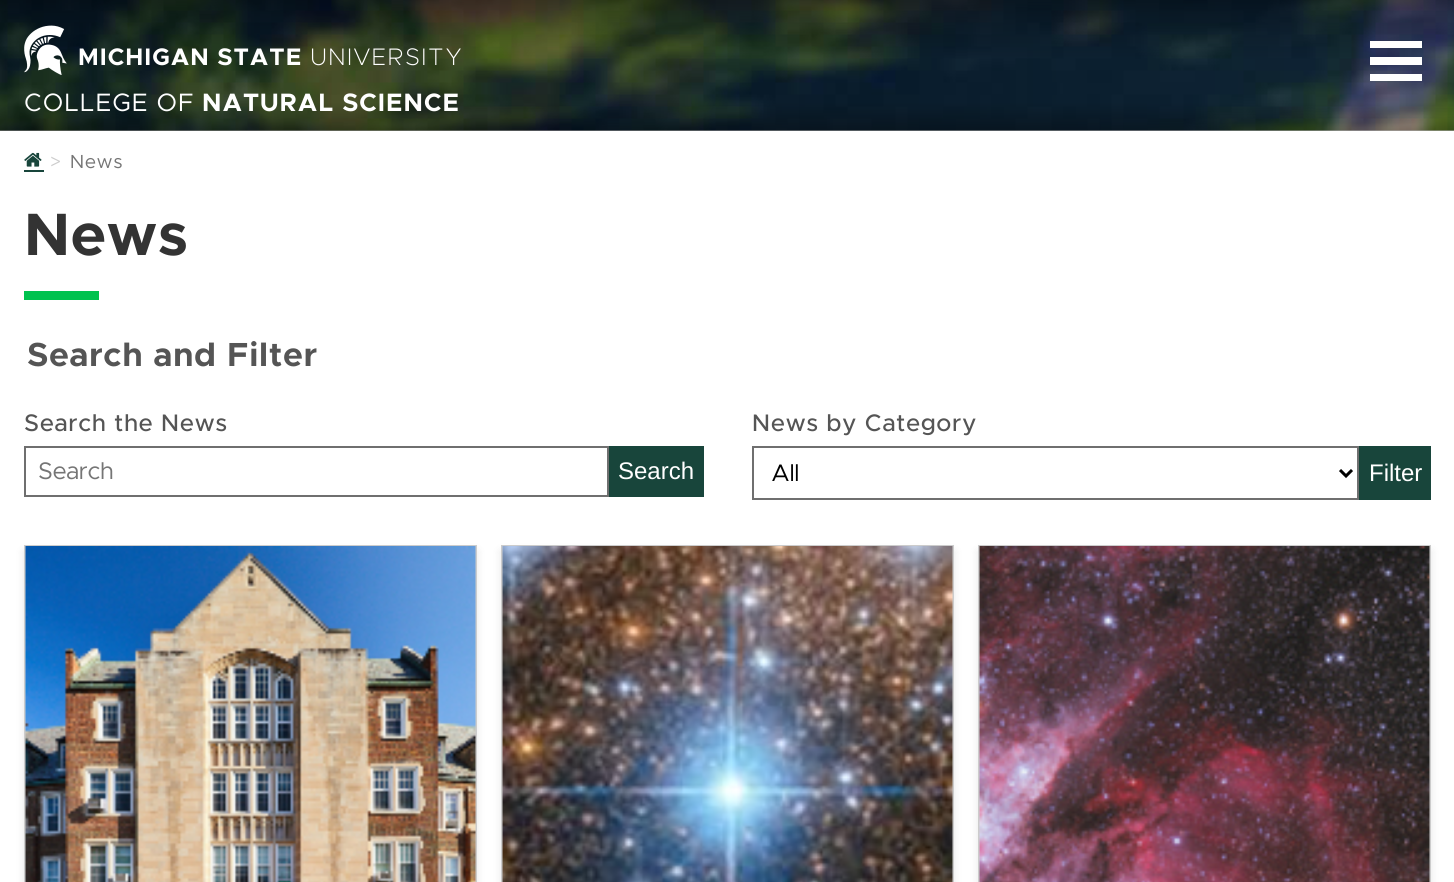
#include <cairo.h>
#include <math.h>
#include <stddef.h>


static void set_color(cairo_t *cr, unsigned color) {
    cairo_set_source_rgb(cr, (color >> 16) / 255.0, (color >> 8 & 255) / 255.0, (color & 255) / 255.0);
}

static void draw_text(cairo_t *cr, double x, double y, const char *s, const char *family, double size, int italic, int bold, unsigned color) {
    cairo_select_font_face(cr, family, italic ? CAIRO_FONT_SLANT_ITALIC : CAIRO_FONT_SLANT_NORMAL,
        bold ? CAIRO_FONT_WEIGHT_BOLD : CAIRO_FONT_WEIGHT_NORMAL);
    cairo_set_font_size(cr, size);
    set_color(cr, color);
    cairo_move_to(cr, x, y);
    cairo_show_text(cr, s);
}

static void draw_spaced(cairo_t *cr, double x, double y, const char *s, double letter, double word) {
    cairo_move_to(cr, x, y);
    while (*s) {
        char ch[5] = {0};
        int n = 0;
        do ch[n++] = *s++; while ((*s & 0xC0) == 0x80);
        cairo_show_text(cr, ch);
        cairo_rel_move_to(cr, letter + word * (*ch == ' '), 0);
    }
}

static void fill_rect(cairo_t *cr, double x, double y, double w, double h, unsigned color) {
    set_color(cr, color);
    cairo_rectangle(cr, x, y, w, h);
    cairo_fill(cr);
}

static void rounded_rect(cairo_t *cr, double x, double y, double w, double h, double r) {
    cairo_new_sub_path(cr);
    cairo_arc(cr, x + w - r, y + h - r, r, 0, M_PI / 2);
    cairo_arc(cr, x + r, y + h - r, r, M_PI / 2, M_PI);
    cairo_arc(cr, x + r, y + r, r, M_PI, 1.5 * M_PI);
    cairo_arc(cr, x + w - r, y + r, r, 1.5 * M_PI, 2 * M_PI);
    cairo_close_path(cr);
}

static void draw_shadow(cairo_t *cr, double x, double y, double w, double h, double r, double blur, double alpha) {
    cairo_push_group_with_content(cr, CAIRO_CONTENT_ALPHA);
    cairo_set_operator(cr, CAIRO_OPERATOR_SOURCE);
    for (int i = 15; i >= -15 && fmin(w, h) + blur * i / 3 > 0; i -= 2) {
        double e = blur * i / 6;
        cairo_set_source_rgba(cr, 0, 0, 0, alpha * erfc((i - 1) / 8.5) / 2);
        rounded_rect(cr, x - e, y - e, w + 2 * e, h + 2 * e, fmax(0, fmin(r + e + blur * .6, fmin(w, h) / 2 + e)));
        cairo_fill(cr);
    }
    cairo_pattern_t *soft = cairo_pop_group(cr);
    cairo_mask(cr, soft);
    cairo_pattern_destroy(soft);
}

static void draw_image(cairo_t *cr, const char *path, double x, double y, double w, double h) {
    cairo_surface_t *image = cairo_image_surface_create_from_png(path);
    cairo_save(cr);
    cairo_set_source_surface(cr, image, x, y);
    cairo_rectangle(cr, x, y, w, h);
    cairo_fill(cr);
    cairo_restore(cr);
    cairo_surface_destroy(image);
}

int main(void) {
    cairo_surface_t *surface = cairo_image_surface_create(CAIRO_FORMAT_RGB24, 1454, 882);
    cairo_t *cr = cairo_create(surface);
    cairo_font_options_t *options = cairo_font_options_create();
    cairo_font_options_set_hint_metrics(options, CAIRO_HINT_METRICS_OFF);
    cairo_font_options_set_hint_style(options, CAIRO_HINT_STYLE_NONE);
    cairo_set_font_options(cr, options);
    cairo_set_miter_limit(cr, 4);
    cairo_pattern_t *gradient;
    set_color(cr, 0xFFFFFF);
    cairo_paint(cr);
    draw_image(cr, "assets/img1.png", 0, 0, 1454, 131);
    gradient = cairo_pattern_create_linear(728, 131, 728, -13);
    cairo_pattern_add_color_stop_rgba(gradient, 0, 0, 0, 0, 0.3);
    cairo_pattern_add_color_stop_rgba(gradient, 0.2, 0, 0, 0, 0);
    cairo_pattern_add_color_stop_rgba(gradient, 0.5, 0, 0, 0, 0);
    cairo_pattern_add_color_stop_rgba(gradient, 0.8, 0, 0, 0, 0.2);
    cairo_pattern_add_color_stop_rgba(gradient, 1, 0, 0, 0, 0.4);
    cairo_set_source(cr, gradient);
    cairo_pattern_destroy(gradient);
    cairo_rectangle(cr, 0, 0, 1454, 131);
    cairo_fill(cr);
    gradient = cairo_pattern_create_linear(0, 59, 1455, 58);
    cairo_pattern_add_color_stop_rgba(gradient, 0, 0, 0, 0, 0.25);
    cairo_pattern_add_color_stop_rgba(gradient, 1, 0, 0, 0, 0);
    cairo_set_source(cr, gradient);
    cairo_pattern_destroy(gradient);
    cairo_rectangle(cr, 0, 0, 1330, 131);
    cairo_fill(cr);
    draw_image(cr, "assets/img2.png", 24, 25, 43, 50);
    cairo_select_font_face(cr, "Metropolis", CAIRO_FONT_SLANT_NORMAL, CAIRO_FONT_WEIGHT_BOLD);
    cairo_set_font_size(cr, 24);
    set_color(cr, 0xFFFFFF);
    draw_spaced(cr, 78, 65, "MICHIGAN STATE", 1, 0);
    cairo_select_font_face(cr, "Metropolis ExtraLight", CAIRO_FONT_SLANT_NORMAL, CAIRO_FONT_WEIGHT_NORMAL);
    draw_spaced(cr, 310, 65, "UNIVERSITY", 1, 0);
    cairo_select_font_face(cr, "Metropolis", CAIRO_FONT_SLANT_NORMAL, CAIRO_FONT_WEIGHT_NORMAL);
    cairo_set_font_size(cr, 25.25);
    draw_spaced(cr, 24, 111, "COLLEGE OF", 1, 0);
    cairo_select_font_face(cr, "Metropolis", CAIRO_FONT_SLANT_NORMAL, CAIRO_FONT_WEIGHT_BOLD);
    draw_spaced(cr, 202, 111, "NATURAL SCIENCE", 1, 0);
    fill_rect(cr, 1370, 41, 52, 7, 0xFFFFFF);
    fill_rect(cr, 1370, 57, 52, 8, 0xFFFFFF);
    fill_rect(cr, 1370, 74, 52, 7, 0xFFFFFF);
    draw_image(cr, "assets/img3.png", 24, 152, 18, 15);
    fill_rect(cr, 24, 170, 20, 2, 0x18453B);
    cairo_select_font_face(cr, "Metropolis", CAIRO_FONT_SLANT_NORMAL, CAIRO_FONT_WEIGHT_NORMAL);
    cairo_set_font_size(cr, 19);
    set_color(cr, 0xCCCCCC);
    draw_spaced(cr, 50, 168, ">", 1, 0);
    set_color(cr, 0x757575);
    draw_spaced(cr, 70, 168, "News", 1, 0);
    cairo_select_font_face(cr, "Metropolis", CAIRO_FONT_SLANT_NORMAL, CAIRO_FONT_WEIGHT_BOLD);
    cairo_set_font_size(cr, 60);
    set_color(cr, 0x333333);
    draw_spaced(cr, 24, 255, "News", 1, 0);
    fill_rect(cr, 24, 291, 75, 9, 0x00C24E);
    cairo_set_font_size(cr, 33.5);
    set_color(cr, 0x555555);
    draw_spaced(cr, 27, 366, "Search and Filter", 1, 0);
    cairo_select_font_face(cr, "Metropolis Medium", CAIRO_FONT_SLANT_NORMAL, CAIRO_FONT_WEIGHT_NORMAL);
    cairo_set_font_size(cr, 24);
    draw_spaced(cr, 24, 431, "Search the News", 1, 0);
    cairo_rectangle(cr, 25, 447, 583, 49);
    set_color(cr, 0x6F6F6F);
    cairo_stroke(cr);
    draw_text(cr, 38, 479, "Search", "Metropolis", 24, 0, 0, 0x757575);
    fill_rect(cr, 609, 446, 95, 51, 0x18453B);
    draw_text(cr, 618, 479, "Search", "Liberation Sans", 24, 0, 0, 0xFFFFFF);
    cairo_select_font_face(cr, "Metropolis Medium", CAIRO_FONT_SLANT_NORMAL, CAIRO_FONT_WEIGHT_NORMAL);
    set_color(cr, 0x555555);
    draw_spaced(cr, 752, 431, "News by Category", 1, 0);
    cairo_rectangle(cr, 753, 447, 605, 52);
    set_color(cr, 0x6F6F6F);
    cairo_stroke(cr);
    cairo_new_path(cr);
    cairo_move_to(cr, 1340, 470);
    cairo_line_to(cr, 1346, 476);
    cairo_line_to(cr, 1352, 470);
    set_color(cr, 0x000000);
    cairo_set_line_width(cr, 3);
    cairo_stroke(cr);
    draw_text(cr, 771, 481, "All", "Metropolis", 24, 0, 0, 0x000000);
    fill_rect(cr, 1359, 446, 72, 54, 0x18453B);
    draw_text(cr, 1369, 481, "Filter", "Liberation Sans", 24, 0, 0, 0xFFFFFF);
    set_color(cr, 0x000000);
    draw_shadow(cr, 24, 551, 453, 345, 0, 4.5, 0.1);
    cairo_rectangle(cr, 25, 546, 451, 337);
    set_color(cr, 0xCCCCCC);
    cairo_set_line_width(cr, 2);
    cairo_stroke(cr);
    draw_image(cr, "assets/img4.png", 25, 546, 451, 336);
    set_color(cr, 0x000000);
    draw_shadow(cr, 501, 551, 453, 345, 0, 4.5, 0.1);
    cairo_rectangle(cr, 502, 546, 451, 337);
    set_color(cr, 0xCCCCCC);
    cairo_stroke(cr);
    draw_image(cr, "assets/img5.png", 502, 546, 451, 336);
    set_color(cr, 0x000000);
    draw_shadow(cr, 978, 551, 453, 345, 0, 4.5, 0.1);
    cairo_rectangle(cr, 979, 546, 451, 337);
    set_color(cr, 0xCCCCCC);
    cairo_stroke(cr);
    draw_image(cr, "assets/img6.png", 979, 546, 451, 336);
    cairo_surface_write_to_png(surface, "output.png");
    cairo_font_options_destroy(options);
    cairo_destroy(cr);
    cairo_surface_destroy(surface);
    return 0;
}
